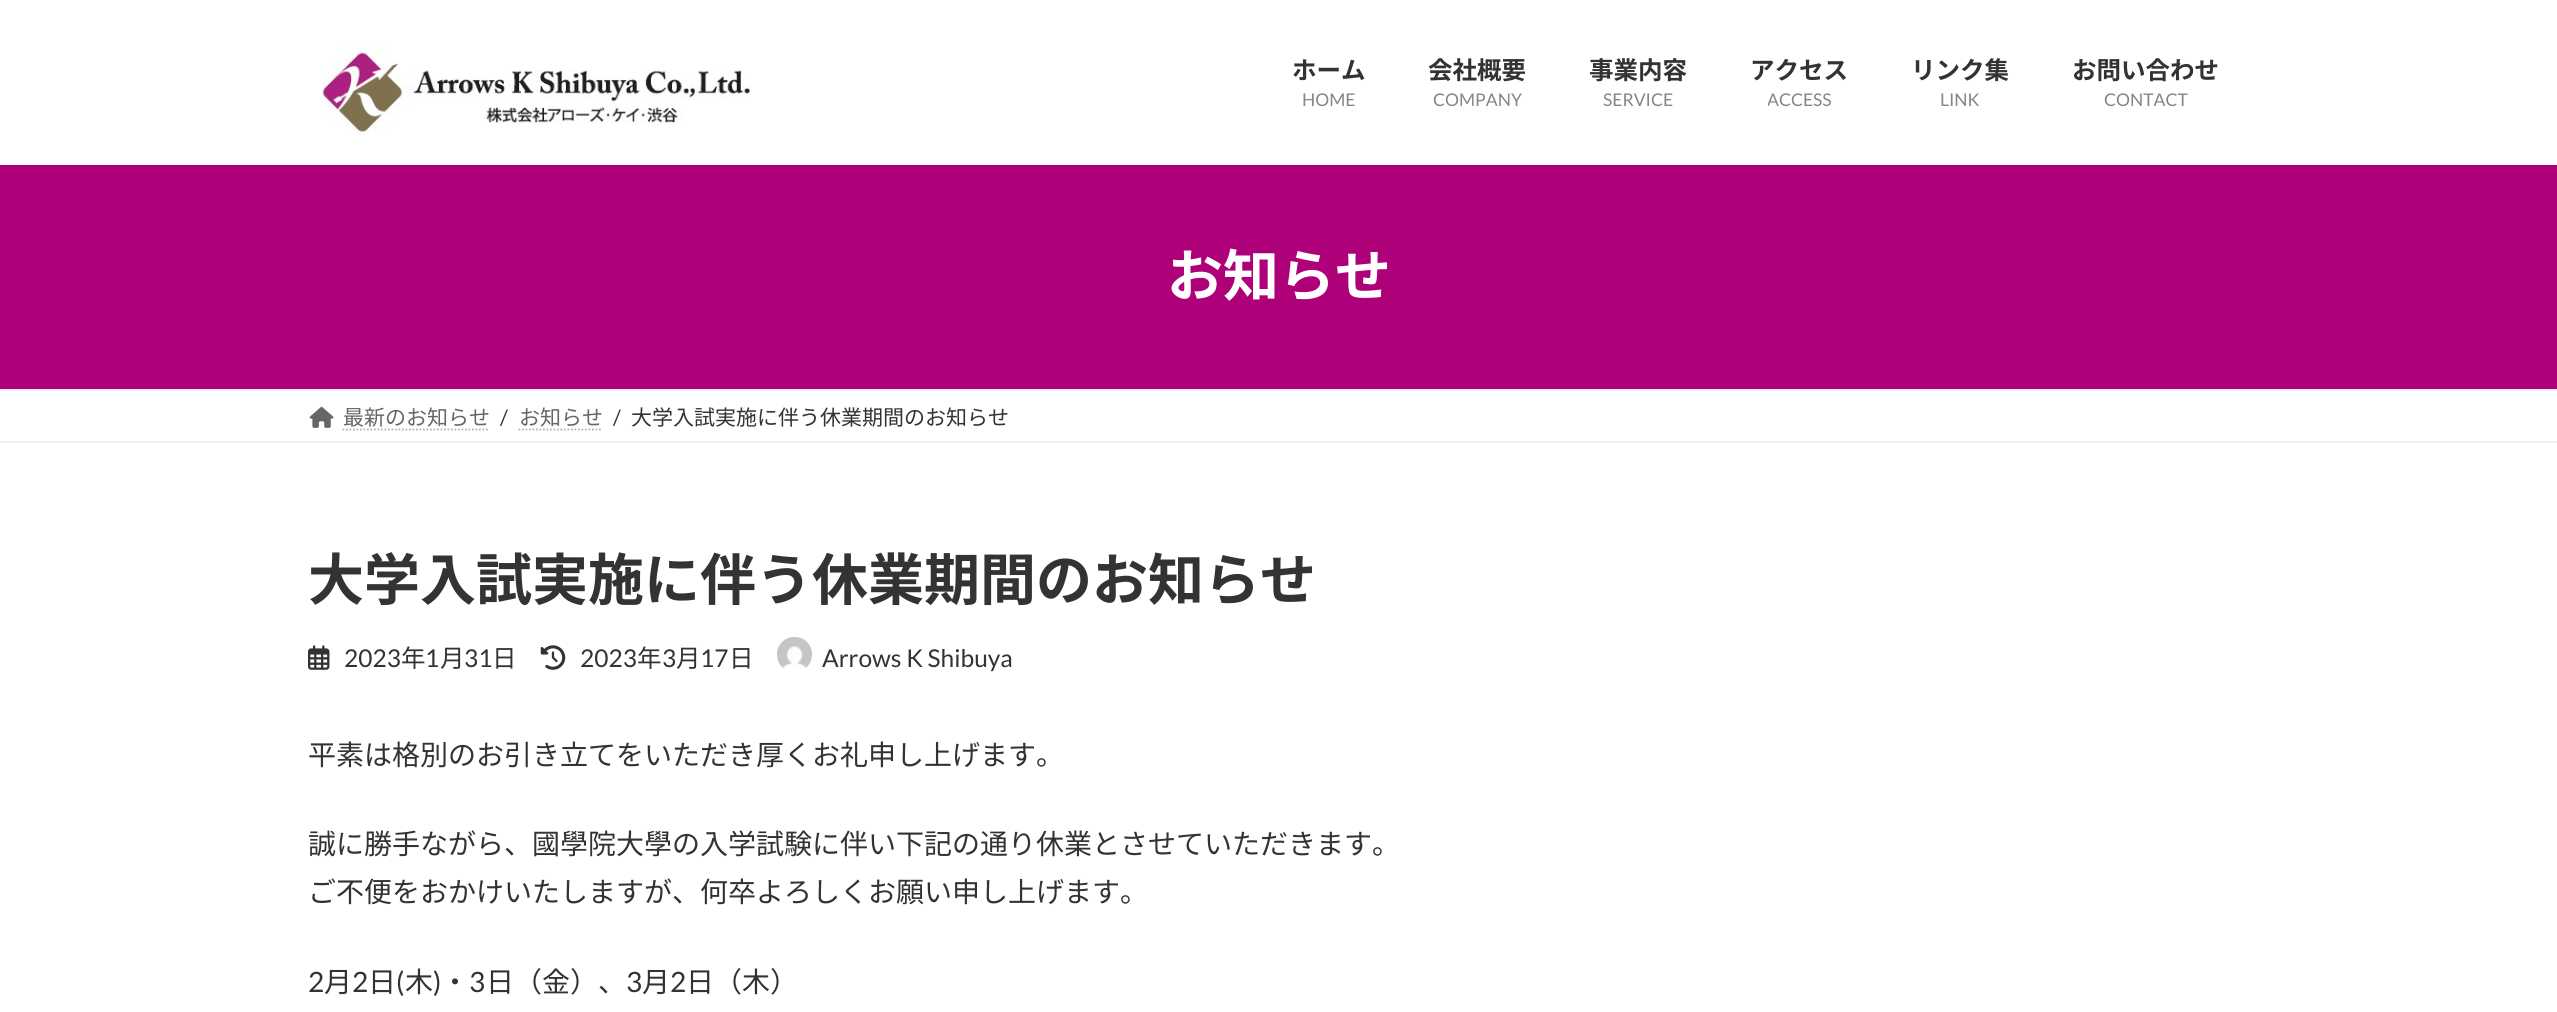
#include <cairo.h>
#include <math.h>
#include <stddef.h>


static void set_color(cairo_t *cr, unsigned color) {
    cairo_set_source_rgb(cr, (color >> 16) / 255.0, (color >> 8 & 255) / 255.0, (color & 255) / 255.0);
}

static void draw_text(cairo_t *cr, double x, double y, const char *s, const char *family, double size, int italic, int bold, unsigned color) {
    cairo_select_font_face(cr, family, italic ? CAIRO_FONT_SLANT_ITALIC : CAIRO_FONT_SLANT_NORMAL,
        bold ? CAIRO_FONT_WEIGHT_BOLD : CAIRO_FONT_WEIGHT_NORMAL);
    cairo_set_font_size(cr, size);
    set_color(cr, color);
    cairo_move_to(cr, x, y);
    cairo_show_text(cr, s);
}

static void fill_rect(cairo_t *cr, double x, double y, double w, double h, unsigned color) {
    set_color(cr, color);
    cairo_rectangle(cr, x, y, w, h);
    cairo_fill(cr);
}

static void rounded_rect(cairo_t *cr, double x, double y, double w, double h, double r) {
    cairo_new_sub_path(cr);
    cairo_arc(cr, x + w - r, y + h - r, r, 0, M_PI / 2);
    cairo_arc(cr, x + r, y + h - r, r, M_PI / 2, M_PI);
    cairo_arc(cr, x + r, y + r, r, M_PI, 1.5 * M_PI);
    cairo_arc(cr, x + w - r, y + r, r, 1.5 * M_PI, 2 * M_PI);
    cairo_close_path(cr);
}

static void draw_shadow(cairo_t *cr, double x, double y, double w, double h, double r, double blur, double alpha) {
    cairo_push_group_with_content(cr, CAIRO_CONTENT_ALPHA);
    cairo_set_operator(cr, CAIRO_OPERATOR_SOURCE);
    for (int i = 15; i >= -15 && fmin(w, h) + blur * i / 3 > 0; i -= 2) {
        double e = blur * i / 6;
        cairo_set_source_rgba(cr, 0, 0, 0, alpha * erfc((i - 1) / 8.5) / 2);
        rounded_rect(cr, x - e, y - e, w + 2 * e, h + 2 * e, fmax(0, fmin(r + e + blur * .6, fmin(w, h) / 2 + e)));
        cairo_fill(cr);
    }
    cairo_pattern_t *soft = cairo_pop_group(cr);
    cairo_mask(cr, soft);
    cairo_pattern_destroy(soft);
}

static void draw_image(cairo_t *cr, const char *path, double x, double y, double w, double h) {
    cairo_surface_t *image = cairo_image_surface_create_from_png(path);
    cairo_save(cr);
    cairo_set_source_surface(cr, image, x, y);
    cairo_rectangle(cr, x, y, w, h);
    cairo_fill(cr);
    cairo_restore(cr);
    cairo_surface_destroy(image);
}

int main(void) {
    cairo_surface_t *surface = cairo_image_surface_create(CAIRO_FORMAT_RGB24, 2557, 1012);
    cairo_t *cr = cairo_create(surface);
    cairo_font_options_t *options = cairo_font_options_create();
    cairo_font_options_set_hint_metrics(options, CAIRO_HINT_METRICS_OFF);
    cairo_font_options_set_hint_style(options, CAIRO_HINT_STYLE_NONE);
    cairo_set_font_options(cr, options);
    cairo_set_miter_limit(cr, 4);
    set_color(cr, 0xFFFFFF);
    cairo_paint(cr);
    fill_rect(cr, 0, 165, 2557, 224, 0xAE0079);
    set_color(cr, 0x000000);
    draw_shadow(cr, 0, 2, 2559, 164, 0, 2.5, 0.05);
    fill_rect(cr, 0, 0, 2557, 165, 0xFFFFFF);
    draw_image(cr, "assets/img1.png", 322, 47, 429, 88);
    draw_text(cr, 1292, 79, "ホーム", "Noto Sans JP", 24.5, 0, 1, 0x333333);
    draw_text(cr, 1302, 106, "HOME", "Lato", 17.5, 0, 0, 0x858585);
    draw_text(cr, 1428, 79, "会社概要", "Noto Sans JP", 24.5, 0, 1, 0x333333);
    draw_text(cr, 1433, 106, "COMPANY", "Lato", 17.5, 0, 0, 0x858585);
    draw_text(cr, 1589, 79, "事業内容", "Noto Sans JP", 24.5, 0, 1, 0x333333);
    draw_text(cr, 1603, 106, "SERVICE", "Lato", 17.5, 0, 0, 0x858585);
    draw_text(cr, 1750, 79, "アクセス", "Noto Sans JP", 24.5, 0, 1, 0x333333);
    cairo_save(cr);
    cairo_rectangle(cr, 1768, 88, 63, 24);
    cairo_clip(cr);
    draw_text(cr, 1767, 106, "ACCESS", "Lato", 17.5, 0, 0, 0x858585);
    cairo_restore(cr);
    draw_text(cr, 1911, 79, "リンク集", "Noto Sans JP", 24.5, 0, 1, 0x333333);
    draw_text(cr, 1940, 106, "LINK", "Lato", 17.5, 0, 0, 0x858585);
    draw_text(cr, 2072, 79, "お問い合わせ", "Noto Sans JP", 24.5, 0, 1, 0x333333);
    draw_text(cr, 2104, 106, "CONTACT", "Lato", 17.5, 0, 0, 0x858585);
    draw_text(cr, 1167, 296, "お知らせ", "Noto Sans JP", 56, 0, 1, 0xFFFFFF);
    fill_rect(cr, 0, 389, 2557, 2, 0xF0F0F0);
    fill_rect(cr, 0, 441, 2557, 2, 0xF0F0F0);
    draw_image(cr, "assets/img2.png", 309, 406, 25, 22);
    draw_text(cr, 343, 425, "最新のお知らせ", "Noto Sans JP", 21, 0, 0, 0x666666);
    cairo_new_path(cr);
    cairo_move_to(cr, 342.5, 429.5);
    cairo_line_to(cr, 489.5, 429.5);
    set_color(cr, 0xB3B3B3);
    cairo_set_line_width(cr, 1.8);
    cairo_set_dash(cr, (double[]){1.75, 1.75}, 2, 0);
    cairo_stroke(cr);
    draw_text(cr, 500, 425, "/", "Lato", 21, 0, 0, 0x333333);
    draw_text(cr, 519, 425, "お知らせ", "Noto Sans JP", 21, 0, 0, 0x666666);
    cairo_new_path(cr);
    cairo_move_to(cr, 518.5, 429.5);
    cairo_line_to(cr, 602.5, 429.5);
    set_color(cr, 0xB3B3B3);
    cairo_stroke(cr);
    draw_text(cr, 613, 425, "/", "Lato", 21, 0, 0, 0x333333);
    draw_text(cr, 631, 425, "大学入試実施に伴う休業期間のお知らせ", "Noto Sans JP", 21, 0, 0, 0x333333);
    draw_text(cr, 308, 600, "大学入試実施に伴う休業期間のお知らせ", "Noto Sans JP", 56, 0, 1, 0x333333);
    draw_image(cr, "assets/img3.png", 308, 645, 22, 25);
    draw_text(cr, 344, 667, "2023", "Lato", 24.5, 0, 0, 0x333333);
    draw_text(cr, 401, 667, "年", "Noto Sans JP", 24.5, 0, 0, 0x333333);
    draw_text(cr, 425, 667, "1", "Lato", 24.5, 0, 0, 0x333333);
    draw_text(cr, 440, 667, "月", "Noto Sans JP", 24.5, 0, 0, 0x333333);
    draw_text(cr, 464, 667, "31", "Lato", 24.5, 0, 0, 0x333333);
    draw_text(cr, 492, 667, "日", "Noto Sans JP", 24.5, 0, 0, 0x333333);
    draw_image(cr, "assets/img4.png", 540, 645, 26, 25);
    draw_text(cr, 580, 667, "2023", "Lato", 24.5, 0, 0, 0x333333);
    draw_text(cr, 637, 667, "年", "Noto Sans JP", 24.5, 0, 0, 0x333333);
    draw_text(cr, 662, 667, "3", "Lato", 24.5, 0, 0, 0x333333);
    draw_text(cr, 676, 667, "月", "Noto Sans JP", 24.5, 0, 0, 0x333333);
    draw_text(cr, 700, 667, "17", "Lato", 24.5, 0, 0, 0x333333);
    draw_text(cr, 729, 667, "日", "Noto Sans JP", 24.5, 0, 0, 0x333333);
    draw_image(cr, "assets/img5.png", 777, 637, 35, 31);
    draw_text(cr, 822, 667, "Arrows K Shibuya", "Lato", 24.5, 0, 0, 0x333333);
    draw_text(cr, 308, 765, "平素は格別のお引き立てをいただき厚くお礼申し上げます。", "Noto Sans JP", 28, 0, 0, 0x333333);
    draw_text(cr, 308, 854, "誠に勝手ながら、國學院大學の入学試験に伴い下記の通り休業とさせていただきます。", "Noto Sans JP", 28, 0, 0, 0x333333);
    draw_text(cr, 308, 902, "ご不便をおかけいたしますが、何卒よろしくお願い申し上げます。", "Noto Sans JP", 28, 0, 0, 0x333333);
    draw_text(cr, 308, 992, "2", "Lato", 28, 0, 0, 0x333333);
    draw_text(cr, 324, 992, "月", "Noto Sans JP", 28, 0, 0, 0x333333);
    draw_text(cr, 352, 992, "2", "Lato", 28, 0, 0, 0x333333);
    draw_text(cr, 368, 992, "日", "Noto Sans JP", 28, 0, 0, 0x333333);
    draw_text(cr, 396, 992, "(", "Lato", 28, 0, 0, 0x333333);
    draw_text(cr, 405, 992, "木", "Noto Sans JP", 28, 0, 0, 0x333333);
    draw_text(cr, 433, 992, ")", "Lato", 28, 0, 0, 0x333333);
    draw_text(cr, 441, 992, "・", "Noto Sans JP", 28, 0, 0, 0x333333);
    draw_text(cr, 469, 992, "3", "Lato", 28, 0, 0, 0x333333);
    draw_text(cr, 486, 992, "日（金）、", "Noto Sans JP", 28, 0, 0, 0x333333);
    draw_text(cr, 626, 992, "3", "Lato", 28, 0, 0, 0x333333);
    draw_text(cr, 642, 992, "月", "Noto Sans JP", 28, 0, 0, 0x333333);
    draw_text(cr, 670, 992, "2", "Lato", 28, 0, 0, 0x333333);
    draw_text(cr, 686, 992, "日（木）", "Noto Sans JP", 28, 0, 0, 0x333333);
    cairo_surface_write_to_png(surface, "output.png");
    cairo_font_options_destroy(options);
    cairo_destroy(cr);
    cairo_surface_destroy(surface);
    return 0;
}
